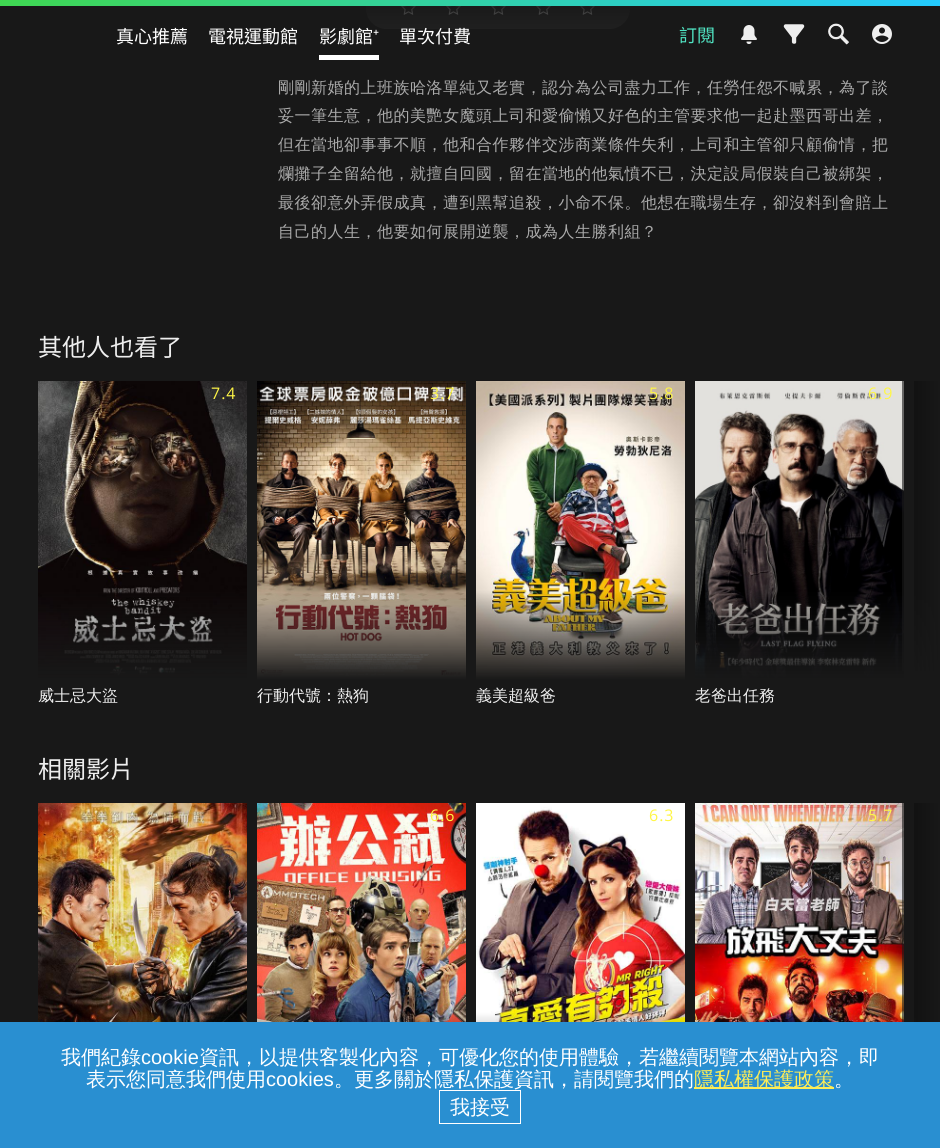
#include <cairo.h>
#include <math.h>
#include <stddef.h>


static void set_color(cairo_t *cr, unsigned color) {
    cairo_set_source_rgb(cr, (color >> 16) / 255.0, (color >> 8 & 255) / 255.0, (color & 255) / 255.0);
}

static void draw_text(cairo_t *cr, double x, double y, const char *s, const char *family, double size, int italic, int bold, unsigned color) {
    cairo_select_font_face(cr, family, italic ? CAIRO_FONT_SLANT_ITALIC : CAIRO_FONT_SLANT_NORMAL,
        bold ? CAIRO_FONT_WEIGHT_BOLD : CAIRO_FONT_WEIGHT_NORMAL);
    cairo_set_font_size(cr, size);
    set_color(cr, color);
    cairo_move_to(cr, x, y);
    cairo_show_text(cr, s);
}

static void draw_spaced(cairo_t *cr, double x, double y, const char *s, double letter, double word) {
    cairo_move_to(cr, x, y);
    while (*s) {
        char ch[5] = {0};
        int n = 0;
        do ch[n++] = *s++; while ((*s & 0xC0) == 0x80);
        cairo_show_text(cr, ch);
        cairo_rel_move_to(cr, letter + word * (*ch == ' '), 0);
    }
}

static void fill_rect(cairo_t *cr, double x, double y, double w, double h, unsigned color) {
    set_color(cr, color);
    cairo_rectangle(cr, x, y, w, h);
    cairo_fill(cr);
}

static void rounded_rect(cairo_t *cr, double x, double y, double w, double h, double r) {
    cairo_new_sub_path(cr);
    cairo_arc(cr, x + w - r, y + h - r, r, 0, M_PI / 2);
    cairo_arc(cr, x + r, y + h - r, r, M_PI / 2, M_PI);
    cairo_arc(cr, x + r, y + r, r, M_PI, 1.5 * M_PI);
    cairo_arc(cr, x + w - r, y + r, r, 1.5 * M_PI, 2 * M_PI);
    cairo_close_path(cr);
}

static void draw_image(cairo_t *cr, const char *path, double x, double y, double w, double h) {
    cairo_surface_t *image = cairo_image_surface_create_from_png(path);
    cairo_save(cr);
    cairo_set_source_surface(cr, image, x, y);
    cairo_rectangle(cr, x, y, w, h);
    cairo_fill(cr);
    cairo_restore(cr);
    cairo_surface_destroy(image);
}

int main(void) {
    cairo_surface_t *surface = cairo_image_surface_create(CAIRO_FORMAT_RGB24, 940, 1148);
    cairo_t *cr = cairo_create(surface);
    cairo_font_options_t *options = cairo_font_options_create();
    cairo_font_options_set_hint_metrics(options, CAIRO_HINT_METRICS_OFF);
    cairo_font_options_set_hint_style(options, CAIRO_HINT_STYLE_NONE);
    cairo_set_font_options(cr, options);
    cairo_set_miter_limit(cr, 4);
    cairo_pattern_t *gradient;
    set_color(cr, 0x181818);
    cairo_paint(cr);
    set_color(cr, 0x2A2A2A);
    rounded_rect(cr, 366, -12, 264, 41, 20.5);
    cairo_fill(cr);
    draw_image(cr, "assets/img5.png", 401, 6, 15, 9);
    draw_image(cr, "assets/img5.png", 446, 6, 15, 9);
    draw_image(cr, "assets/img5.png", 491, 6, 15, 9);
    draw_image(cr, "assets/img5.png", 536, 6, 15, 9);
    draw_image(cr, "assets/img5.png", 580, 6, 15, 9);
    gradient = cairo_pattern_create_linear(470, 0, 470, 66);
    cairo_pattern_add_color_stop_rgba(gradient, 0, 0.094, 0.094, 0.094, 1);
    cairo_pattern_add_color_stop_rgba(gradient, 1, 0.094, 0.094, 0.094, 0);
    cairo_set_source(cr, gradient);
    cairo_pattern_destroy(gradient);
    cairo_rectangle(cr, 366, 6, 264, 23);
    cairo_fill(cr);
    gradient = cairo_pattern_create_linear(231, -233, 709, 239);
    cairo_pattern_add_color_stop_rgba(gradient, 0, 0.247, 0.843, 0.314, 1);
    cairo_pattern_add_color_stop_rgba(gradient, 1, 0.141, 0.796, 1, 1);
    cairo_set_source(cr, gradient);
    cairo_pattern_destroy(gradient);
    cairo_rectangle(cr, 0, 0, 940, 6);
    cairo_fill(cr);
    draw_text(cr, 116, 43, "真心推薦", "Noto Sans TC Thin", 18, 0, 0, 0xFFFFFF);
    draw_text(cr, 208, 43, "電視運動館", "Noto Sans TC Thin", 18, 0, 0, 0xFFFFFF);
    fill_rect(cr, 319, 55, 60, 5, 0xFFFFFF);
    draw_text(cr, 319, 43, "影劇館", "Noto Sans TC Thin", 18, 0, 0, 0xFFFFFF);
    draw_text(cr, 373, 43, "⁺", "Noto Sans", 18, 0, 0, 0xFFFFFF);
    draw_text(cr, 399, 43, "單次付費", "Noto Sans TC Thin", 18, 0, 0, 0xFFFFFF);
    draw_text(cr, 679, 42, "訂閱", "Noto Sans TC Thin", 18, 0, 0, 0x50E3C2);
    draw_image(cr, "assets/img1.png", 741, 25, 16, 19);
    draw_image(cr, "assets/img2.png", 783, 24, 22, 20);
    draw_image(cr, "assets/img3.png", 828, 23, 21, 22);
    draw_image(cr, "assets/img4.png", 872, 24, 20, 20);
    cairo_select_font_face(cr, "WenQuanYi Zen Hei Medium", CAIRO_FONT_SLANT_NORMAL, CAIRO_FONT_WEIGHT_NORMAL);
    cairo_set_font_size(cr, 16);
    set_color(cr, 0xAAAAAA);
    draw_spaced(cr, 278, 93, "剛剛新婚的上班族哈洛單純又老實，認分為公司盡力工作，任勞任怨不喊累，為了談", 0.5, 0);
    draw_spaced(cr, 278, 121, "妥一筆生意，他的美艷女魔頭上司和愛偷懶又好色的主管要求他一起赴墨西哥出差，", 0.5, 0);
    draw_spaced(cr, 278, 150, "但在當地卻事事不順，他和合作夥伴交涉商業條件失利，上司和主管卻只顧偷情，把", 0.5, 0);
    draw_spaced(cr, 278, 179, "爛攤子全留給他，就擅自回國，留在當地的他氣憤不已，決定設局假裝自己被綁架，", 0.5, 0);
    draw_spaced(cr, 278, 208, "最後卻意外弄假成真，遭到黑幫追殺，小命不保。他想在職場生存，卻沒料到會賠上", 0.5, 0);
    draw_spaced(cr, 278, 237, "自己的人生，他要如何展開逆襲，成為人生勝利組？", 0.5, 0);
    draw_text(cr, 38, 356, "其他人也看了", "Noto Sans TC Thin", 24, 0, 0, 0xEEEEEE);
    draw_image(cr, "assets/img6.png", 38, 381, 209, 299);
    cairo_select_font_face(cr, "Open Sans", CAIRO_FONT_SLANT_NORMAL, CAIRO_FONT_WEIGHT_NORMAL);
    cairo_set_font_size(cr, 16);
    set_color(cr, 0xFFF646);
    draw_spaced(cr, 211, 399, "7.4", 1, 0);
    draw_text(cr, 38, 701, "威士忌大盜", "WenQuanYi Zen Hei Medium", 16, 0, 0, 0xEEEEEE);
    draw_image(cr, "assets/img7.png", 257, 381, 209, 299);
    cairo_select_font_face(cr, "Open Sans", CAIRO_FONT_SLANT_NORMAL, CAIRO_FONT_WEIGHT_NORMAL);
    set_color(cr, 0xFFF646);
    draw_spaced(cr, 430, 399, "3.7", 1, 0);
    draw_text(cr, 257, 701, "行動代號：熱狗", "WenQuanYi Zen Hei Medium", 16, 0, 0, 0xEEEEEE);
    draw_image(cr, "assets/img8.png", 476, 381, 209, 299);
    cairo_select_font_face(cr, "Open Sans", CAIRO_FONT_SLANT_NORMAL, CAIRO_FONT_WEIGHT_NORMAL);
    set_color(cr, 0xFFF646);
    draw_spaced(cr, 649, 399, "5.8", 1, 0);
    draw_text(cr, 476, 701, "義美超級爸", "WenQuanYi Zen Hei Medium", 16, 0, 0, 0xEEEEEE);
    draw_image(cr, "assets/img9.png", 695, 381, 209, 299);
    cairo_select_font_face(cr, "Open Sans", CAIRO_FONT_SLANT_NORMAL, CAIRO_FONT_WEIGHT_NORMAL);
    set_color(cr, 0xFFF646);
    draw_spaced(cr, 868, 399, "6.9", 1, 0);
    draw_text(cr, 695, 701, "老爸出任務", "WenQuanYi Zen Hei Medium", 16, 0, 0, 0xEEEEEE);
    gradient = cairo_pattern_create_linear(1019, 381, 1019, 680);
    cairo_pattern_add_color_stop_rgba(gradient, 0.7, 0, 0, 0, 1);
    cairo_pattern_add_color_stop_rgba(gradient, 1, 0.094, 0.094, 0.094, 1);
    cairo_set_source(cr, gradient);
    cairo_pattern_destroy(gradient);
    cairo_rectangle(cr, 914, 381, 25, 290);
    cairo_fill(cr);
    gradient = cairo_pattern_create_linear(902, 545, 940, 545);
    cairo_pattern_add_color_stop_rgba(gradient, 0, 0.094, 0.094, 0.094, 0.6);
    cairo_pattern_add_color_stop_rgba(gradient, 1, 0.094, 0.094, 0.094, 1);
    cairo_set_source(cr, gradient);
    cairo_pattern_destroy(gradient);
    cairo_rectangle(cr, 902, 381, 37, 290);
    cairo_fill(cr);
    draw_text(cr, 38, 778, "相關影片", "Noto Sans TC Thin", 24, 0, 0, 0xEEEEEE);
    draw_image(cr, "assets/img10.png", 38, 803, 209, 219);
    draw_image(cr, "assets/img11.png", 257, 803, 209, 219);
    cairo_select_font_face(cr, "Open Sans", CAIRO_FONT_SLANT_NORMAL, CAIRO_FONT_WEIGHT_NORMAL);
    cairo_set_font_size(cr, 16);
    set_color(cr, 0xFFF646);
    draw_spaced(cr, 430, 821, "6.6", 1, 0);
    draw_image(cr, "assets/img12.png", 476, 803, 209, 219);
    draw_spaced(cr, 649, 821, "6.3", 1, 0);
    draw_image(cr, "assets/img13.png", 695, 803, 209, 219);
    draw_spaced(cr, 868, 821, "5.7", 1, 0);
    gradient = cairo_pattern_create_linear(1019, 803, 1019, 1102);
    cairo_pattern_add_color_stop_rgba(gradient, 0.7, 0, 0, 0, 1);
    cairo_pattern_add_color_stop_rgba(gradient, 1, 0.094, 0.094, 0.094, 1);
    cairo_set_source(cr, gradient);
    cairo_pattern_destroy(gradient);
    cairo_rectangle(cr, 914, 803, 25, 219);
    cairo_fill(cr);
    gradient = cairo_pattern_create_linear(902, 966, 940, 966);
    cairo_pattern_add_color_stop_rgba(gradient, 0, 0.094, 0.094, 0.094, 0.6);
    cairo_pattern_add_color_stop_rgba(gradient, 1, 0.094, 0.094, 0.094, 1);
    cairo_set_source(cr, gradient);
    cairo_pattern_destroy(gradient);
    cairo_rectangle(cr, 902, 803, 37, 219);
    cairo_fill(cr);
    fill_rect(cr, 0, 1022, 940, 126, 0x298FD1);
    draw_text(cr, 61, 1064, "我們紀錄", "WenQuanYi Zen Hei Medium", 20, 0, 0, 0xFFFFFF);
    draw_text(cr, 141, 1064, "cookie", "Liberation Sans", 20, 0, 0, 0xFFFFFF);
    draw_text(cr, 199, 1064, "資訊，以提供客製化內容，可優化您的使用體驗，若繼續閱覽本網站內容，即", "WenQuanYi Zen Hei Medium", 20, 0, 0, 0xFFFFFF);
    draw_text(cr, 86, 1086, "表示您同意我們使用", "WenQuanYi Zen Hei Medium", 20, 0, 0, 0xFFFFFF);
    draw_text(cr, 266, 1086, "cookies", "Liberation Sans", 20, 0, 0, 0xFFFFFF);
    draw_text(cr, 334, 1086, "。更多關於隱私保護資訊，請閱覽我們的", "WenQuanYi Zen Hei Medium", 20, 0, 0, 0xFFFFFF);
    fill_rect(cr, 694, 1087, 140, 2, 0xFDEC57);
    draw_text(cr, 694, 1086, "隱私權保護政策", "WenQuanYi Zen Hei Medium", 20, 0, 0, 0xFDEC57);
    draw_text(cr, 834, 1086, "。", "WenQuanYi Zen Hei Medium", 20, 0, 0, 0xFFFFFF);
    cairo_rectangle(cr, 439.5, 1090.5, 81, 33);
    cairo_set_line_width(cr, 1);
    cairo_stroke(cr);
    draw_text(cr, 450, 1114, "我接受", "WenQuanYi Zen Hei Medium", 20, 0, 0, 0xFFFFFF);
    cairo_surface_write_to_png(surface, "output.png");
    cairo_font_options_destroy(options);
    cairo_destroy(cr);
    cairo_surface_destroy(surface);
    return 0;
}
